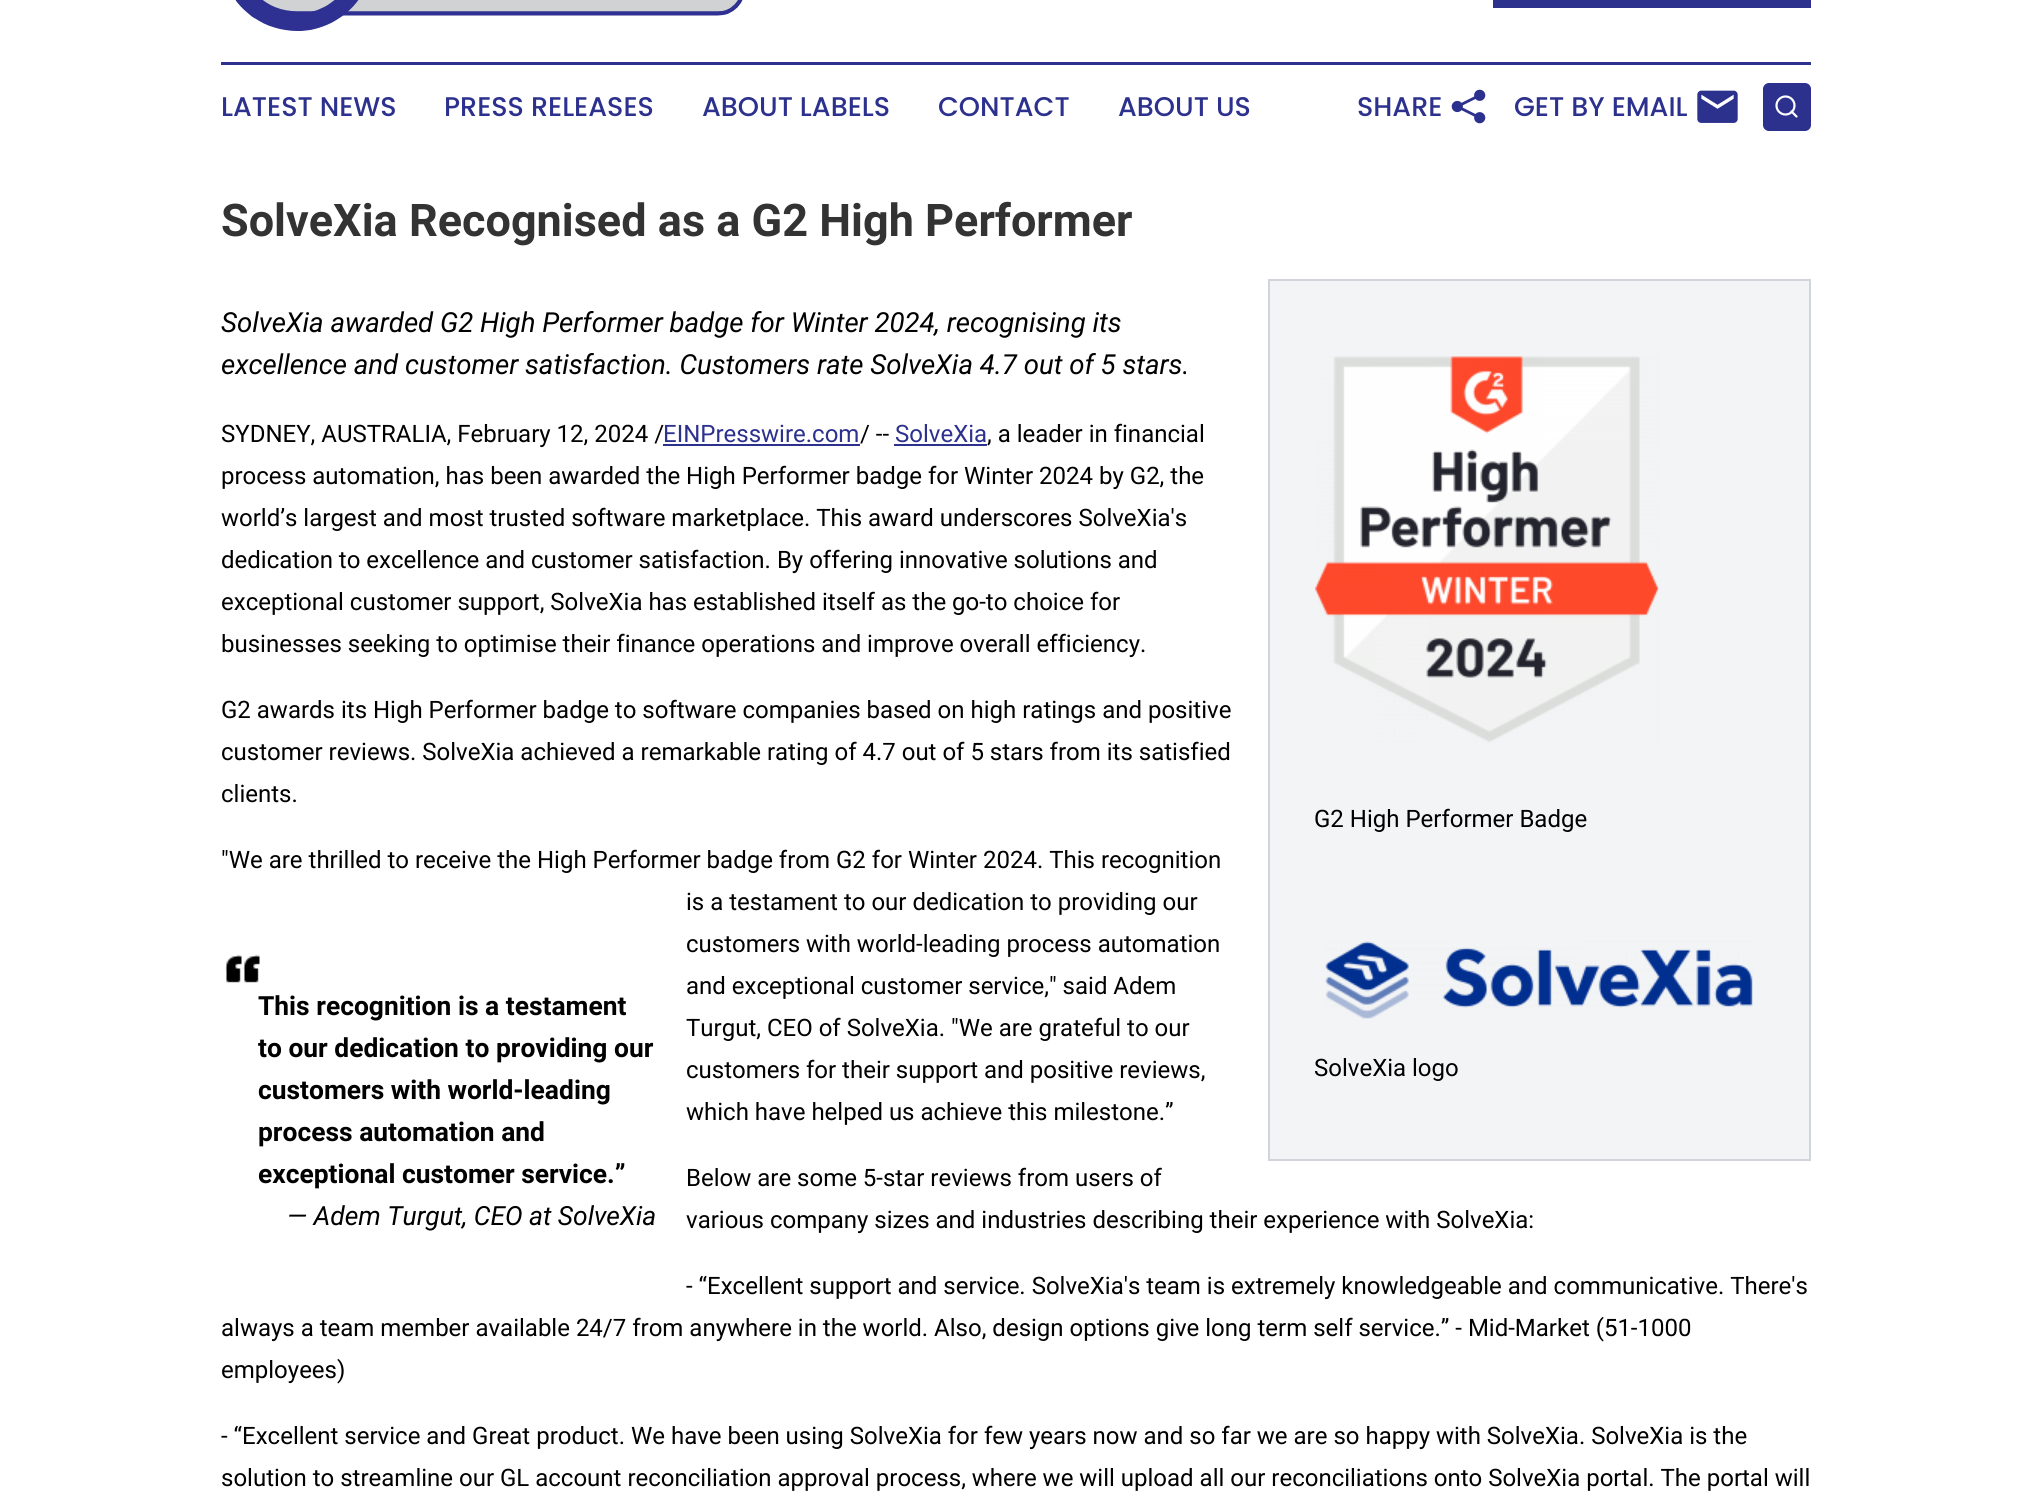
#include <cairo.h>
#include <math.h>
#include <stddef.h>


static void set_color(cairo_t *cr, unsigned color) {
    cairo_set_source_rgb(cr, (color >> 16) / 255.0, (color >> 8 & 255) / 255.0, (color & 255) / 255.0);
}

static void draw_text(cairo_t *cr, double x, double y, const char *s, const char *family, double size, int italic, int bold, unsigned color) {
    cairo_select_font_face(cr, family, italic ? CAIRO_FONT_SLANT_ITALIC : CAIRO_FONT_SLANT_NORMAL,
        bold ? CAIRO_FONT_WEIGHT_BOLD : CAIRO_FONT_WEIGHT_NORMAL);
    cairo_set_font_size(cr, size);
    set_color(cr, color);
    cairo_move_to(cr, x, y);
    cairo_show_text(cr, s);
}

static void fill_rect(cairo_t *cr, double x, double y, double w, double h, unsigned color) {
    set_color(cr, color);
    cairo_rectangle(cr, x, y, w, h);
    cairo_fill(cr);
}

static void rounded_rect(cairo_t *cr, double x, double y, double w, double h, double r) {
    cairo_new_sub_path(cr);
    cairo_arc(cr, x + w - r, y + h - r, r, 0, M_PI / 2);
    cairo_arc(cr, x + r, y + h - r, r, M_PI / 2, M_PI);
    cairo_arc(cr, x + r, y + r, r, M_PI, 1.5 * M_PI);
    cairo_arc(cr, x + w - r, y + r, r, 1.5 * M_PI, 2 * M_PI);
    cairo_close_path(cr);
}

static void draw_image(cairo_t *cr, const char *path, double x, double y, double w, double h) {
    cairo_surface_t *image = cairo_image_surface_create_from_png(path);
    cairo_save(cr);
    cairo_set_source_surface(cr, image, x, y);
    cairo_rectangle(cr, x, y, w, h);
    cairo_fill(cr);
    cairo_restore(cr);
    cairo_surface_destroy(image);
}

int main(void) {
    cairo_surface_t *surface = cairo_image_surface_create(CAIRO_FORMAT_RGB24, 2030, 1502);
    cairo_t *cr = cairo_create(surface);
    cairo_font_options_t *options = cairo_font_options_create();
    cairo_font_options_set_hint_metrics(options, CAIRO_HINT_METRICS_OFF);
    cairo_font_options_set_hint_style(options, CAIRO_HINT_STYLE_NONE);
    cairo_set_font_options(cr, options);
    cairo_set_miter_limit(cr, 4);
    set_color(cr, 0xFFFFFF);
    cairo_paint(cr);
    draw_image(cr, "assets/img1.png", 235, 0, 508, 31);
    fill_rect(cr, 1493, 0, 318, 8, 0x2D318E);
    fill_rect(cr, 221, 62, 1590, 3, 0x2D318E);
    draw_text(cr, 221, 116, "LATEST NEWS", "Poppins Medium", 27, 0, 0, 0x2D318E);
    draw_text(cr, 444, 116, "PRESS RELEASES", "Poppins Medium", 27, 0, 0, 0x2D318E);
    draw_text(cr, 702, 116, "ABOUT LABELS", "Poppins Medium", 27, 0, 0, 0x2D318E);
    draw_text(cr, 938, 116, "CONTACT", "Poppins Medium", 27, 0, 0, 0x2D318E);
    draw_text(cr, 1118, 116, "ABOUT US", "Poppins Medium", 27, 0, 0, 0x2D318E);
    draw_text(cr, 1357, 116, "SHARE", "Poppins Medium", 27, 0, 0, 0x2D318E);
    draw_image(cr, "assets/img2.png", 1451, 89, 35, 35);
    draw_text(cr, 1514, 116, "GET BY EMAIL", "Poppins Medium", 27, 0, 0, 0x2D318E);
    draw_image(cr, "assets/img3.png", 1697, 90, 41, 33);
    rounded_rect(cr, 1763, 83, 48, 48, 6);
    cairo_fill(cr);
    cairo_arc(cr, 1785.5, 105.5, 9, 0, 2 * M_PI);
    set_color(cr, 0xFFFFFF);
    cairo_set_line_width(cr, 2.2);
    cairo_stroke(cr);
    cairo_new_path(cr);
    cairo_move_to(cr, 1796.5, 116.5);
    cairo_line_to(cr, 1791.5, 111.5);
    cairo_set_line_cap(cr, CAIRO_LINE_CAP_ROUND);
    cairo_set_line_join(cr, CAIRO_LINE_JOIN_ROUND);
    cairo_stroke(cr);
    draw_text(cr, 221, 236, "SolveXia Recognised as a G2 High Performer", "Roboto", 45, 0, 1, 0x333333);
    draw_text(cr, 221, 332, "SolveXia awarded G2 High Performer badge for Winter 2024, recognising its", "Roboto", 27.6, 1, 0, 0x000000);
    draw_text(cr, 221, 374, "excellence and customer satisfaction. Customers rate SolveXia 4.7 out of 5 stars.", "Roboto", 27.6, 1, 0, 0x000000);
    draw_text(cr, 221, 442, "SYDNEY, AUSTRALIA, February 12, 2024 /", "Roboto", 24, 0, 0, 0x000000);
    draw_text(cr, 663, 442, "EINPresswire.com", "Roboto", 24, 0, 0, 0x2D318E);
    fill_rect(cr, 663, 444, 197, 2, 0x2D318E);
    draw_text(cr, 860, 442, "/ --", "Roboto", 24, 0, 0, 0x000000);
    draw_text(cr, 895, 442, "SolveXia", "Roboto", 24, 0, 0, 0x2D318E);
    fill_rect(cr, 894, 444, 93, 2, 0x2D318E);
    draw_text(cr, 987, 442, ", a leader in financial", "Roboto", 24, 0, 0, 0x000000);
    draw_text(cr, 221, 484, "process automation, has been awarded the High Performer badge for Winter 2024 by G2, the", "Roboto", 24, 0, 0, 0x000000);
    draw_text(cr, 221, 526, "world’s largest and most trusted software marketplace. This award underscores SolveXia's", "Roboto", 24, 0, 0, 0x000000);
    draw_text(cr, 221, 568, "dedication to excellence and customer satisfaction. By offering innovative solutions and", "Roboto", 24, 0, 0, 0x000000);
    draw_text(cr, 221, 610, "exceptional customer support, SolveXia has established itself as the go-to choice for", "Roboto", 24, 0, 0, 0x000000);
    draw_text(cr, 221, 652, "businesses seeking to optimise their finance operations and improve overall efficiency.", "Roboto", 24, 0, 0, 0x000000);
    draw_text(cr, 221, 718, "G2 awards its High Performer badge to software companies based on high ratings and positive", "Roboto", 24, 0, 0, 0x000000);
    draw_text(cr, 221, 760, "customer reviews. SolveXia achieved a remarkable rating of 4.7 out of 5 stars from its satisfied", "Roboto", 24, 0, 0, 0x000000);
    draw_text(cr, 221, 802, "clients.", "Roboto", 24, 0, 0, 0x000000);
    draw_text(cr, 221, 868, "\"We are thrilled to receive the High Performer badge from G2 for Winter 2024. This recognition", "Roboto", 24, 0, 0, 0x000000);
    draw_text(cr, 686, 910, "is a testament to our dedication to providing our", "Roboto", 24, 0, 0, 0x000000);
    draw_text(cr, 686, 952, "customers with world-leading process automation", "Roboto", 24, 0, 0, 0x000000);
    draw_text(cr, 686, 994, "and exceptional customer service,\" said Adem", "Roboto", 24, 0, 0, 0x000000);
    draw_text(cr, 686, 1036, "Turgut, CEO of SolveXia. \"We are grateful to our", "Roboto", 24, 0, 0, 0x000000);
    draw_text(cr, 686, 1078, "customers for their support and positive reviews,", "Roboto", 24, 0, 0, 0x000000);
    draw_text(cr, 686, 1120, "which have helped us achieve this milestone.”", "Roboto", 24, 0, 0, 0x000000);
    set_color(cr, 0xF3F4F6);
    cairo_rectangle(cr, 1269, 280, 541, 880);
    cairo_fill_preserve(cr);
    set_color(cr, 0xD1D5DB);
    cairo_set_line_width(cr, 2);
    cairo_set_line_cap(cr, CAIRO_LINE_CAP_BUTT);
    cairo_set_line_join(cr, CAIRO_LINE_JOIN_MITER);
    cairo_stroke(cr);
    draw_image(cr, "assets/img4.png", 1314, 356, 346, 387);
    draw_text(cr, 1314, 827, "G2 High Performer Badge", "Roboto", 24, 0, 0, 0x000000);
    draw_image(cr, "assets/img5.png", 1325, 941, 428, 78);
    draw_text(cr, 1314, 1076, "SolveXia logo", "Roboto", 24, 0, 0, 0x000000);
    draw_image(cr, "assets/img6.png", 225, 954, 35, 29);
    draw_text(cr, 258, 1015, "This recognition is a testament", "Roboto", 26.4, 0, 1, 0x000000);
    draw_text(cr, 258, 1057, "to our dedication to providing our", "Roboto", 26.4, 0, 1, 0x000000);
    draw_text(cr, 258, 1099, "customers with world-leading", "Roboto", 26.4, 0, 1, 0x000000);
    draw_text(cr, 258, 1141, "process automation and", "Roboto", 26.4, 0, 1, 0x000000);
    draw_text(cr, 258, 1183, "exceptional customer service.”", "Roboto", 26.4, 0, 1, 0x000000);
    draw_text(cr, 287, 1225, "— Adem Turgut, CEO at SolveXia", "Roboto", 26.4, 1, 0, 0x000000);
    draw_text(cr, 686, 1186, "Below are some 5-star reviews from users of", "Roboto", 24, 0, 0, 0x000000);
    draw_text(cr, 686, 1228, "various company sizes and industries describing their experience with SolveXia:", "Roboto", 24, 0, 0, 0x000000);
    draw_text(cr, 686, 1294, "- “Excellent support and service. SolveXia's team is extremely knowledgeable and communicative. There's", "Roboto", 24, 0, 0, 0x000000);
    draw_text(cr, 221, 1336, "always a team member available 24/7 from anywhere in the world. Also, design options give long term self service.” - Mid-Market (51-1000", "Roboto", 24, 0, 0, 0x000000);
    draw_text(cr, 221, 1378, "employees)", "Roboto", 24, 0, 0, 0x000000);
    draw_text(cr, 221, 1444, "- “Excellent service and Great product. We have been using SolveXia for few years now and so far we are so happy with SolveXia. SolveXia is the", "Roboto", 24, 0, 0, 0x000000);
    draw_text(cr, 221, 1486, "solution to streamline our GL account reconciliation approval process, where we will upload all our reconciliations onto SolveXia portal. The portal will", "Roboto", 24, 0, 0, 0x000000);
    cairo_surface_write_to_png(surface, "output.png");
    cairo_font_options_destroy(options);
    cairo_destroy(cr);
    cairo_surface_destroy(surface);
    return 0;
}
